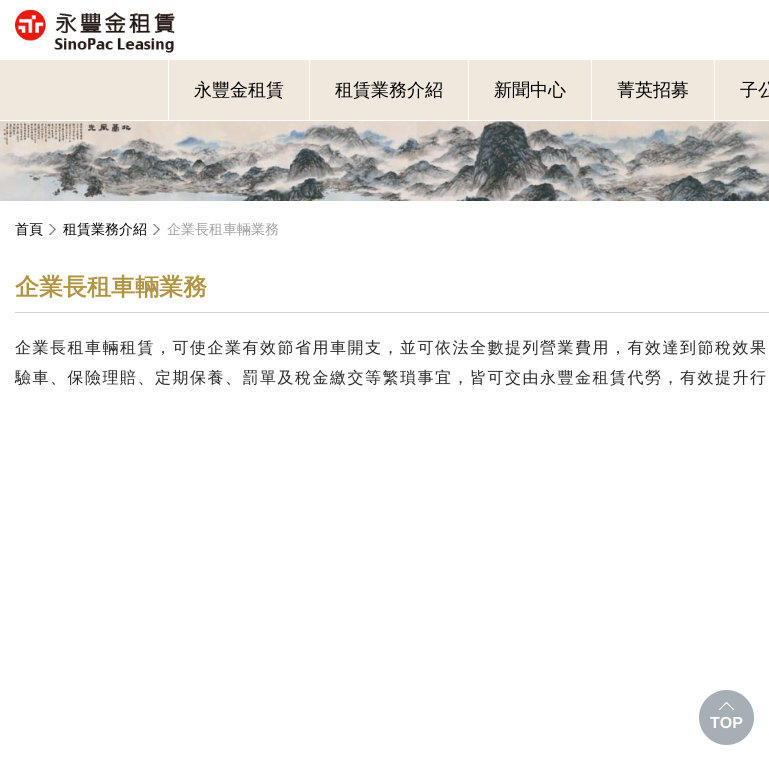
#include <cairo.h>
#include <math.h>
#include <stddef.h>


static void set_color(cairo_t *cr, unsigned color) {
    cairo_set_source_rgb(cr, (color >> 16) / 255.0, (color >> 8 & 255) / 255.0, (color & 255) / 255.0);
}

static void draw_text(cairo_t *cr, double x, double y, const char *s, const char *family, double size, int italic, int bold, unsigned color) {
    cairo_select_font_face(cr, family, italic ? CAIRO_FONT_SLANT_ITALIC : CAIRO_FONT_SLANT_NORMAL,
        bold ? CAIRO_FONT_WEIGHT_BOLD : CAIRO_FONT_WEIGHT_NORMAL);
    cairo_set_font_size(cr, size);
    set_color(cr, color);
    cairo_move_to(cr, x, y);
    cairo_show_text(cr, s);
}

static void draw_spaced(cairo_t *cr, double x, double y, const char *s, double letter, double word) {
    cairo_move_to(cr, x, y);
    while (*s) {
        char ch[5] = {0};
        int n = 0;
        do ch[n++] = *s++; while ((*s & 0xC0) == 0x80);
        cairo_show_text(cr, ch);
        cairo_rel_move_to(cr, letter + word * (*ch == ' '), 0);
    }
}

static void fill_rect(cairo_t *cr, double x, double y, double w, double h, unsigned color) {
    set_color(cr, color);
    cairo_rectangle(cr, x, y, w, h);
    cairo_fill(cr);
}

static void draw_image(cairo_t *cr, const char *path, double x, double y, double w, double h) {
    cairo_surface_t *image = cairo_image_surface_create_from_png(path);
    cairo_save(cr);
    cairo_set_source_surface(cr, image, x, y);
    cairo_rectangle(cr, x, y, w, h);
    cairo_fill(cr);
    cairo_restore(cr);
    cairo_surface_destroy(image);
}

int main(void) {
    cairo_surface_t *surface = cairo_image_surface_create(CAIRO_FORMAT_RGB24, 769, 775);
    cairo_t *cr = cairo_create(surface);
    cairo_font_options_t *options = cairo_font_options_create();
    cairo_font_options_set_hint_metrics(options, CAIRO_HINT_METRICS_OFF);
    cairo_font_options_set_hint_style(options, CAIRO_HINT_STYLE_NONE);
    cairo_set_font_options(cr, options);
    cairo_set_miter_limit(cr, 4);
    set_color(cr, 0xFFFFFF);
    cairo_paint(cr);
    draw_image(cr, "assets/img1.png", 15, 9, 160, 44);
    fill_rect(cr, 0, 60, 769, 60, 0xF0E7DD);
    fill_rect(cr, 168, 60, 1, 60, 0xFFFFFF);
    draw_text(cr, 194, 96, "永豐金租賃", "WenQuanYi Zen Hei Medium", 18, 0, 0, 0x000000);
    fill_rect(cr, 309, 60, 1, 60, 0xFFFFFF);
    draw_text(cr, 335, 96, "租賃業務介紹", "WenQuanYi Zen Hei Medium", 18, 0, 0, 0x000000);
    fill_rect(cr, 468, 60, 1, 60, 0xFFFFFF);
    draw_text(cr, 494, 96, "新聞中心", "WenQuanYi Zen Hei Medium", 18, 0, 0, 0x000000);
    fill_rect(cr, 591, 60, 1, 60, 0xFFFFFF);
    draw_text(cr, 617, 96, "菁英招募", "WenQuanYi Zen Hei Medium", 18, 0, 0, 0x000000);
    fill_rect(cr, 714, 60, 1, 60, 0xFFFFFF);
    draw_text(cr, 740, 96, "子公", "WenQuanYi Zen Hei Medium", 18, 0, 0, 0x000000);
    draw_image(cr, "assets/img2.png", 0, 121, 769, 80);
    draw_image(cr, "assets/img3.png", 49, 224, 7, 11);
    draw_text(cr, 15, 234, "首頁", "WenQuanYi Zen Hei Medium", 14, 0, 0, 0x000000);
    draw_image(cr, "assets/img3.png", 153, 224, 7, 11);
    draw_text(cr, 63, 234, "租賃業務介紹", "WenQuanYi Zen Hei Medium", 14, 0, 0, 0x000000);
    draw_text(cr, 167, 234, "企業長租車輛業務", "WenQuanYi Zen Hei Medium", 14, 0, 0, 0xA0A0A0);
    fill_rect(cr, 15, 312, 754, 1, 0xD2D2D2);
    draw_text(cr, 15, 295, "企業長租車輛業務", "WenQuanYi Zen Hei", 24, 0, 1, 0xB19545);
    cairo_select_font_face(cr, "WenQuanYi Zen Hei Medium", CAIRO_FONT_SLANT_NORMAL, CAIRO_FONT_WEIGHT_NORMAL);
    cairo_set_font_size(cr, 16);
    set_color(cr, 0x282828);
    draw_spaced(cr, 15, 353, "企業長租車輛租賃，可使企業有效節省用車開支，並可依法全數提列營業費用，有效達到節稅效果", 1.5, 0);
    draw_spaced(cr, 15, 383, "驗車、保險理賠、定期保養、罰單及稅金繳交等繁瑣事宜，皆可交由永豐金租賃代勞，有效提升行", 1.5, 0);
    set_color(cr, 0xA5AFB4);
    cairo_new_path(cr);
    cairo_arc(cr, 726.5, 717.5, 27.5, 0, 2 * M_PI);
    cairo_fill(cr);
    draw_image(cr, "assets/img4.png", 719, 702, 15, 8);
    draw_text(cr, 710, 728, "TOP", "Liberation Sans", 16, 0, 1, 0xFFFFFF);
    cairo_surface_write_to_png(surface, "output.png");
    cairo_font_options_destroy(options);
    cairo_destroy(cr);
    cairo_surface_destroy(surface);
    return 0;
}
